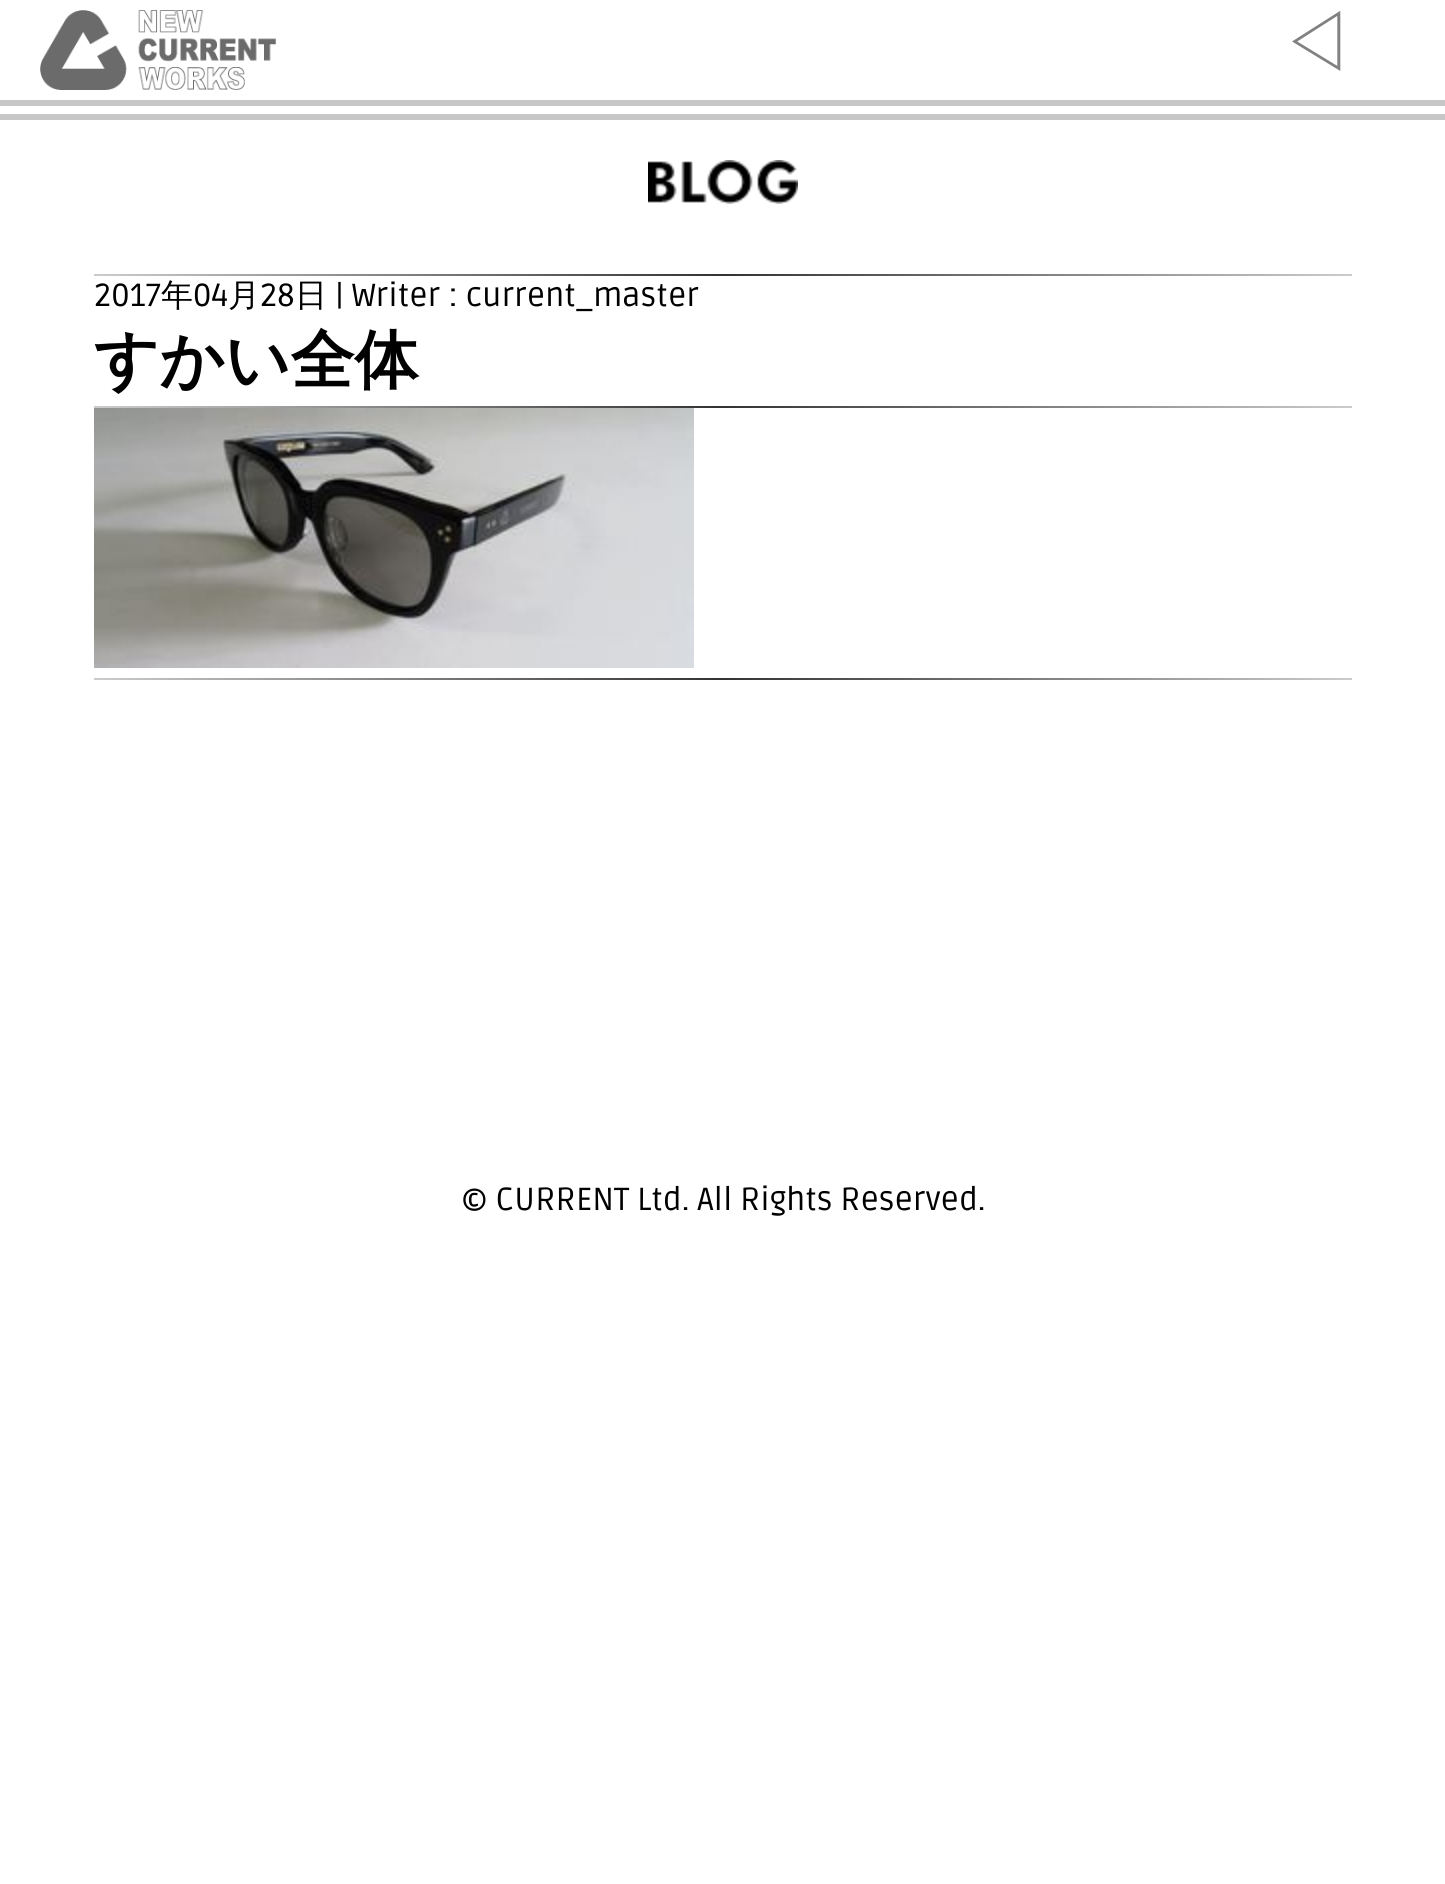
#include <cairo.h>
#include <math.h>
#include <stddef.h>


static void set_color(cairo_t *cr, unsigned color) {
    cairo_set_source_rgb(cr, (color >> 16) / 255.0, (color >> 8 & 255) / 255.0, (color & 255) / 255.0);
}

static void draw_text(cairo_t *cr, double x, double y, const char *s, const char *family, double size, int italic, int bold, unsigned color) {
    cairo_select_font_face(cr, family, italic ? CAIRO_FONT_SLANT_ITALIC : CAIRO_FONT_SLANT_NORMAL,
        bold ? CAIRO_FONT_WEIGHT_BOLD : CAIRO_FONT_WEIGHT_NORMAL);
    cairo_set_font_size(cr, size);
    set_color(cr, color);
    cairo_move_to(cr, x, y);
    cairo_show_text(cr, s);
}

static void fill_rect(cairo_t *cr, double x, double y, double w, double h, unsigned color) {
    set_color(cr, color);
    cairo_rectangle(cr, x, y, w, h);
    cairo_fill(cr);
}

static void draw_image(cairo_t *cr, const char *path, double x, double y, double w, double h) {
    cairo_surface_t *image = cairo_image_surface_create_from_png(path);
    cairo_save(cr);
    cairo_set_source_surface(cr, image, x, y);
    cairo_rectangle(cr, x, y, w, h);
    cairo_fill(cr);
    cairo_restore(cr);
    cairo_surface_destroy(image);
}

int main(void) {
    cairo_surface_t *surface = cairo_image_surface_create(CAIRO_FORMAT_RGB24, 1445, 1884);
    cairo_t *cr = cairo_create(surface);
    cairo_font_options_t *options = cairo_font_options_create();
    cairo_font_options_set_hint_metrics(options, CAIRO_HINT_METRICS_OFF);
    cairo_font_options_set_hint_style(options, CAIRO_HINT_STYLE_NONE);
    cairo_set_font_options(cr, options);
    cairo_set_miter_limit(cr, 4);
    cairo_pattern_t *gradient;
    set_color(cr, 0xFFFFFF);
    cairo_paint(cr);
    fill_rect(cr, 0, 100, 1445, 6, 0xC7C7C7);
    fill_rect(cr, 0, 114, 1445, 6, 0xC7C7C7);
    draw_image(cr, "assets/img1.png", 40, 10, 236, 80);
    draw_text(cr, 1278, 68, "◁", "WenQuanYi Zen Hei Medium", 74, 0, 0, 0x818181);
    draw_image(cr, "assets/img2.png", 648, 160, 150, 44);
    gradient = cairo_pattern_create_linear(94, 275, 1352, 275);
    cairo_pattern_add_color_stop_rgba(gradient, 0, 0.8, 0.8, 0.8, 1);
    cairo_pattern_add_color_stop_rgba(gradient, 0.5, 0.2, 0.2, 0.2, 1);
    cairo_pattern_add_color_stop_rgba(gradient, 1, 0.8, 0.8, 0.8, 1);
    cairo_set_source(cr, gradient);
    cairo_pattern_destroy(gradient);
    cairo_rectangle(cr, 94, 274, 1258, 2);
    cairo_fill(cr);
    draw_text(cr, 94, 306, "2017", "Ruda", 32, 0, 0, 0x000000);
    draw_text(cr, 161, 306, "年", "WenQuanYi Zen Hei Medium", 32, 0, 0, 0x000000);
    draw_text(cr, 193, 306, "04", "Ruda", 32, 0, 0, 0x000000);
    draw_text(cr, 228, 306, "月", "WenQuanYi Zen Hei Medium", 32, 0, 0, 0x000000);
    draw_text(cr, 260, 306, "28", "Ruda", 32, 0, 0, 0x000000);
    draw_text(cr, 295, 306, "日", "WenQuanYi Zen Hei Medium", 32, 0, 0, 0x000000);
    draw_text(cr, 335, 306, "| Writer : current_master", "Ruda", 32, 0, 0, 0x000000);
    draw_text(cr, 94, 382, "すかい全体", "WenQuanYi Zen Hei", 64, 0, 1, 0x000000);
    gradient = cairo_pattern_create_linear(94, 407, 1352, 407);
    cairo_pattern_add_color_stop_rgba(gradient, 0, 0.8, 0.8, 0.8, 1);
    cairo_pattern_add_color_stop_rgba(gradient, 0.5, 0.2, 0.2, 0.2, 1);
    cairo_pattern_add_color_stop_rgba(gradient, 1, 0.8, 0.8, 0.8, 1);
    cairo_set_source(cr, gradient);
    cairo_pattern_destroy(gradient);
    cairo_rectangle(cr, 94, 406, 1258, 2);
    cairo_fill(cr);
    draw_image(cr, "assets/img3.png", 94, 408, 600, 260);
    gradient = cairo_pattern_create_linear(94, 679, 1352, 679);
    cairo_pattern_add_color_stop_rgba(gradient, 0, 0.8, 0.8, 0.8, 1);
    cairo_pattern_add_color_stop_rgba(gradient, 0.5, 0.2, 0.2, 0.2, 1);
    cairo_pattern_add_color_stop_rgba(gradient, 1, 0.8, 0.8, 0.8, 1);
    cairo_set_source(cr, gradient);
    cairo_pattern_destroy(gradient);
    cairo_rectangle(cr, 94, 678, 1258, 2);
    cairo_fill(cr);
    draw_text(cr, 461, 1210, "© CURRENT Ltd. All Rights Reserved.", "Ruda", 32, 0, 0, 0x000000);
    cairo_surface_write_to_png(surface, "output.png");
    cairo_font_options_destroy(options);
    cairo_destroy(cr);
    cairo_surface_destroy(surface);
    return 0;
}
